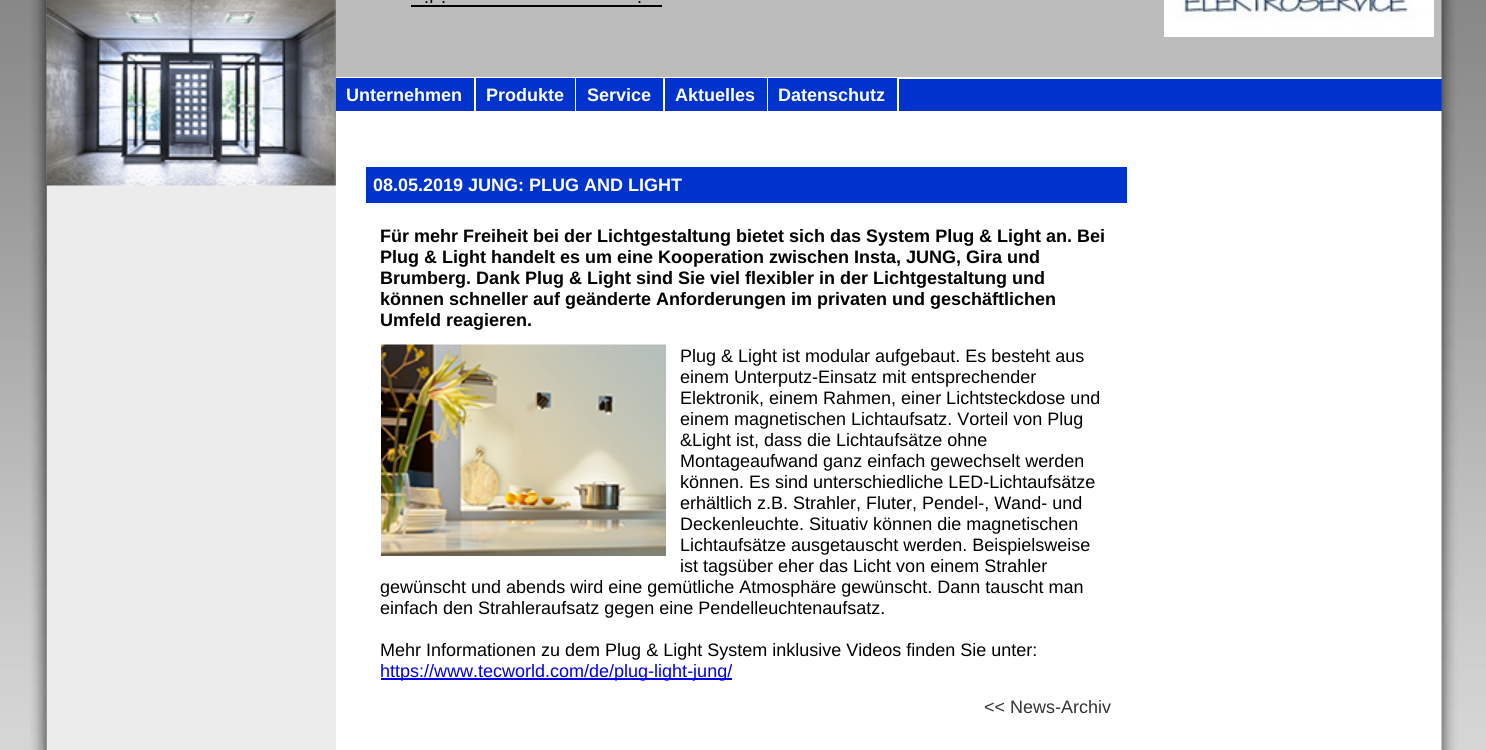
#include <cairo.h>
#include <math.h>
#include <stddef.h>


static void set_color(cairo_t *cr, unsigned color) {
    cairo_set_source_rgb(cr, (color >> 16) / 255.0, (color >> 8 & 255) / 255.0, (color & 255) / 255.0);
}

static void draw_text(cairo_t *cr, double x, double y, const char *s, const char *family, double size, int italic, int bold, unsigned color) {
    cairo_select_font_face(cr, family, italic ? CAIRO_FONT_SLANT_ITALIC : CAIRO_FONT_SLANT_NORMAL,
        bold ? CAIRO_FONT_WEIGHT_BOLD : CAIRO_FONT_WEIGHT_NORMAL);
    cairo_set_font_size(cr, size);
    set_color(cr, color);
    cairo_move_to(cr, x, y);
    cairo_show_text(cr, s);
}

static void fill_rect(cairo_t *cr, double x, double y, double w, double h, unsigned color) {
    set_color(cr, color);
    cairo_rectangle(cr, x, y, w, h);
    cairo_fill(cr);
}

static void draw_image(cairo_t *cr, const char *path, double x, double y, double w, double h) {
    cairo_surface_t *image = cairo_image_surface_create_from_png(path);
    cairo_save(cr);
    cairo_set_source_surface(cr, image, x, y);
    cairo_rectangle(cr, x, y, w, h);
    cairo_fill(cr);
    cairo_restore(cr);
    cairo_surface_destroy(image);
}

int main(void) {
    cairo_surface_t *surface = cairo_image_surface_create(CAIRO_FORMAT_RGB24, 1486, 750);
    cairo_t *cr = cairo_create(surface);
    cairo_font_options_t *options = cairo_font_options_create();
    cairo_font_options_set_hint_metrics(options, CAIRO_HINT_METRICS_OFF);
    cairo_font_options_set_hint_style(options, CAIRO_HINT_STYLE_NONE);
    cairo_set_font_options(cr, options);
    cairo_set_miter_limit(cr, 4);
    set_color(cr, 0xFFFFFF);
    cairo_paint(cr);
    draw_image(cr, "assets/img1.png", 0, 0, 1486, 750);
    draw_image(cr, "assets/img2.png", 46, 0, 1, 750);
    draw_image(cr, "assets/img3.png", 30, 0, 17, 750);
    fill_rect(cr, 336, 0, 1106, 77, 0xBCBCBC);
    fill_rect(cr, 899, 79, 543, 32, 0x0033CC);
    fill_rect(cr, 336, 77, 1106, 2, 0xFFFFFF);
    fill_rect(cr, 336, 111, 1106, 2, 0xFFFFFF);
    fill_rect(cr, 336, 113, 1106, 637, 0xFFFFFF);
    draw_image(cr, "assets/img4.png", 1441, 0, 17, 750);
    fill_rect(cr, 47, 185, 289, 565, 0xECECEC);
    draw_image(cr, "assets/img5.png", 46, 0, 290, 186);
    draw_text(cr, 424, 3, ".P.", "Liberation Sans", 18, 0, 0, 0x000000);
    draw_text(cr, 637, 3, ".", "Liberation Sans", 18, 0, 0, 0x000000);
    fill_rect(cr, 411, 5, 251, 2, 0x000000);
    draw_image(cr, "assets/img6.png", 1164, 0, 270, 37);
    fill_rect(cr, 336, 78, 138, 33, 0x0033CC);
    fill_rect(cr, 474, 78, 2, 33, 0xFFFFFF);
    draw_text(cr, 346, 101, "Unternehmen", "Liberation Sans", 18, 0, 1, 0xFFFFFF);
    fill_rect(cr, 476, 78, 99, 33, 0x0033CC);
    fill_rect(cr, 575, 78, 1, 33, 0xFFFFFF);
    draw_text(cr, 486, 101, "Produkte", "Liberation Sans", 18, 0, 1, 0xFFFFFF);
    fill_rect(cr, 576, 78, 87, 33, 0x0033CC);
    fill_rect(cr, 663, 78, 2, 33, 0xFFFFFF);
    draw_text(cr, 587, 101, "Service", "Liberation Sans", 18, 0, 1, 0xFFFFFF);
    fill_rect(cr, 665, 78, 102, 33, 0x0033CC);
    fill_rect(cr, 767, 78, 1, 33, 0xFFFFFF);
    draw_text(cr, 675, 101, "Aktuelles", "Liberation Sans", 18, 0, 1, 0xFFFFFF);
    fill_rect(cr, 768, 78, 129, 33, 0x0033CC);
    fill_rect(cr, 897, 78, 2, 33, 0xFFFFFF);
    draw_text(cr, 778, 101, "Datenschutz", "Liberation Sans", 18, 0, 1, 0xFFFFFF);
    fill_rect(cr, 366, 167, 761, 36, 0x0033CC);
    draw_text(cr, 373, 191, "08.05.2019 JUNG: PLUG AND LIGHT", "Liberation Sans", 18, 0, 1, 0xFFFFFF);
    draw_text(cr, 380, 242, "Für mehr Freiheit bei der Lichtgestaltung bietet sich das System Plug & Light an. Bei", "Liberation Sans", 18, 0, 1, 0x000000);
    draw_text(cr, 380, 263, "Plug & Light handelt es um eine Kooperation zwischen Insta, JUNG, Gira und", "Liberation Sans", 18, 0, 1, 0x000000);
    draw_text(cr, 380, 284, "Brumberg. Dank Plug & Light sind Sie viel flexibler in der Lichtgestaltung und", "Liberation Sans", 18, 0, 1, 0x000000);
    draw_text(cr, 380, 305, "können schneller auf geänderte Anforderungen im privaten und geschäftlichen", "Liberation Sans", 18, 0, 1, 0x000000);
    draw_text(cr, 380, 326, "Umfeld reagieren.", "Liberation Sans", 18, 0, 1, 0x000000);
    draw_image(cr, "assets/img7.png", 381, 344, 285, 212);
    draw_text(cr, 680, 362, "Plug & Light ist modular aufgebaut. Es besteht aus", "Liberation Sans", 18, 0, 0, 0x000000);
    draw_text(cr, 680, 383, "einem Unterputz-Einsatz mit entsprechender", "Liberation Sans", 18, 0, 0, 0x000000);
    draw_text(cr, 680, 404, "Elektronik, einem Rahmen, einer Lichtsteckdose und", "Liberation Sans", 18, 0, 0, 0x000000);
    draw_text(cr, 680, 425, "einem magnetischen Lichtaufsatz. Vorteil von Plug", "Liberation Sans", 18, 0, 0, 0x000000);
    draw_text(cr, 680, 446, "&Light ist, dass die Lichtaufsätze ohne", "Liberation Sans", 18, 0, 0, 0x000000);
    draw_text(cr, 680, 467, "Montageaufwand ganz einfach gewechselt werden", "Liberation Sans", 18, 0, 0, 0x000000);
    draw_text(cr, 680, 488, "können. Es sind unterschiedliche LED-Lichtaufsätze", "Liberation Sans", 18, 0, 0, 0x000000);
    draw_text(cr, 680, 509, "erhältlich z.B. Strahler, Fluter, Pendel-, Wand- und", "Liberation Sans", 18, 0, 0, 0x000000);
    draw_text(cr, 680, 530, "Deckenleuchte. Situativ können die magnetischen", "Liberation Sans", 18, 0, 0, 0x000000);
    draw_text(cr, 680, 551, "Lichtaufsätze ausgetauscht werden. Beispielsweise", "Liberation Sans", 18, 0, 0, 0x000000);
    draw_text(cr, 680, 572, "ist tagsüber eher das Licht von einem Strahler", "Liberation Sans", 18, 0, 0, 0x000000);
    draw_text(cr, 380, 593, "gewünscht und abends wird eine gemütliche Atmosphäre gewünscht. Dann tauscht man", "Liberation Sans", 18, 0, 0, 0x000000);
    draw_text(cr, 380, 614, "einfach den Strahleraufsatz gegen eine Pendelleuchtenaufsatz.", "Liberation Sans", 18, 0, 0, 0x000000);
    draw_text(cr, 380, 656, "Mehr Informationen zu dem Plug & Light System inklusive Videos finden Sie unter:", "Liberation Sans", 18, 0, 0, 0x000000);
    fill_rect(cr, 381, 678, 351, 2, 0x0000EE);
    draw_text(cr, 380, 677, "https://www.tecworld.com/de/plug-light-jung/", "Liberation Sans", 18, 0, 0, 0x0000EE);
    draw_text(cr, 984, 713, "<< News-Archiv", "Liberation Sans", 18, 0, 0, 0x333333);
    cairo_surface_write_to_png(surface, "output.png");
    cairo_font_options_destroy(options);
    cairo_destroy(cr);
    cairo_surface_destroy(surface);
    return 0;
}
